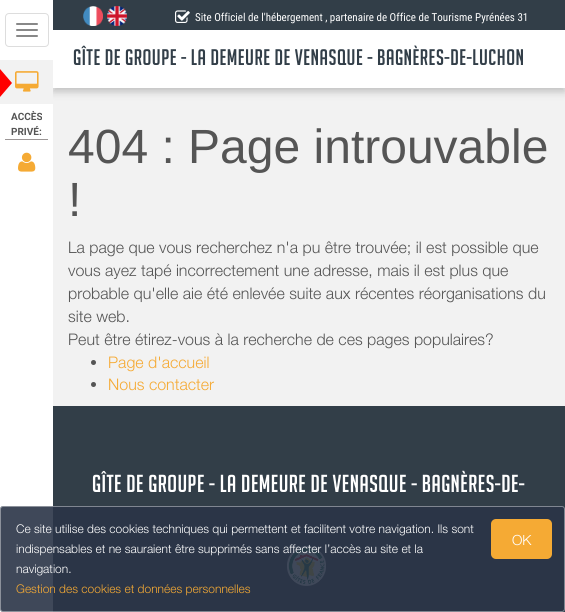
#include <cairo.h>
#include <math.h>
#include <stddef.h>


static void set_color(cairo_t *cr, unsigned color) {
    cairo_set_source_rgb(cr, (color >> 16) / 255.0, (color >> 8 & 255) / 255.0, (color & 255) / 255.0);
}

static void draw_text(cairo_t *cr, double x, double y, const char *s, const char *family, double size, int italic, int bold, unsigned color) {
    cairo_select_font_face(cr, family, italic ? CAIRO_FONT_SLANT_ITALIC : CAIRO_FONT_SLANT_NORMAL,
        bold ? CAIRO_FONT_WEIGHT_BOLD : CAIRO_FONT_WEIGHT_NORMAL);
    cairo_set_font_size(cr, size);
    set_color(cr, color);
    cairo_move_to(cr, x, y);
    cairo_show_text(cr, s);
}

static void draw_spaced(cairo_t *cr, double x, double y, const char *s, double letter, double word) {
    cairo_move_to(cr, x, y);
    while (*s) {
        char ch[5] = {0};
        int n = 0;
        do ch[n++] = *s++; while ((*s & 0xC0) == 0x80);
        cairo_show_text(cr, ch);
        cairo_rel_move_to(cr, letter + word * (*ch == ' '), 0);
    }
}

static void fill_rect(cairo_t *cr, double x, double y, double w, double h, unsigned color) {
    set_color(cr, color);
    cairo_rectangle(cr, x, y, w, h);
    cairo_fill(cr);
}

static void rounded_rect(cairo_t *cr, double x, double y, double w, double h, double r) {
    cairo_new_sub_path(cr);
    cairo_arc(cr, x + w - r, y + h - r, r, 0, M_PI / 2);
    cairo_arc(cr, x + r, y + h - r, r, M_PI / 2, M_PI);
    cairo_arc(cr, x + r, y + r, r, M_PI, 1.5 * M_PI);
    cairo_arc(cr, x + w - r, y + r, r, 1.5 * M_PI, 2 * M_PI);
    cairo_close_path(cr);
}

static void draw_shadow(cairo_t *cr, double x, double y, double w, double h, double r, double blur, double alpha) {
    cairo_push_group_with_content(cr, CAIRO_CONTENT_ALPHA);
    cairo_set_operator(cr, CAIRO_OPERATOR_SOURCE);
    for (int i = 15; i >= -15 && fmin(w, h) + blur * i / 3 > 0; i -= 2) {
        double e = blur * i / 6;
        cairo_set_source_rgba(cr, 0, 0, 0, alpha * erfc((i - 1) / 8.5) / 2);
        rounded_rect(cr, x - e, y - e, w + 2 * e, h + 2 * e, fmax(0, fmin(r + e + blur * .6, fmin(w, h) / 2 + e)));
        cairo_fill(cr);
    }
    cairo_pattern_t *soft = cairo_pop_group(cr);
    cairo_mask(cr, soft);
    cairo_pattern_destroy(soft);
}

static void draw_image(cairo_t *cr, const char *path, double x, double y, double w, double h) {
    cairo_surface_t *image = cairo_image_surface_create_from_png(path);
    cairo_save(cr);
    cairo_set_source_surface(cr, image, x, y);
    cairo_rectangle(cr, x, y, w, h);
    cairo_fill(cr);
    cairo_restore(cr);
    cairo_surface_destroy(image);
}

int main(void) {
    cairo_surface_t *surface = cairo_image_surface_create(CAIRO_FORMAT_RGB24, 565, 612);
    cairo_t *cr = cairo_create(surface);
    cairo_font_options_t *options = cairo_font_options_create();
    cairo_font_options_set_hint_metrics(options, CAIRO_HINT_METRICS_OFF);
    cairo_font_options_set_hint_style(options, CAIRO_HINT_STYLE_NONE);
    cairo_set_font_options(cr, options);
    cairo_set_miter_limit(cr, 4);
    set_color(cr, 0xF2F2F2);
    cairo_paint(cr);
    set_color(cr, 0x000000);
    draw_shadow(cr, 53, 4, 512, 88, 0, 4, 0.2);
    fill_rect(cr, 53, 30, 512, 58, 0xFFFFFF);
    fill_rect(cr, 53, 0, 512, 30, 0x323E48);
    draw_image(cr, "assets/img1.png", 83, 6, 20, 20);
    draw_image(cr, "assets/img2.png", 107, 6, 20, 20);
    draw_image(cr, "assets/img3.png", 175, 10, 15, 13);
    draw_text(cr, 195, 21, "Site Officiel de l'hébergement , partenaire de Office de Tourisme Pyrénées 31", "Roboto Condensed", 11, 0, 0, 0xFFFFFF);
    cairo_select_font_face(cr, "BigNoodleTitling", CAIRO_FONT_SLANT_NORMAL, CAIRO_FONT_WEIGHT_NORMAL);
    cairo_set_font_size(cr, 22);
    set_color(cr, 0x323E48);
    draw_spaced(cr, 73, 65, "GÎTE DE GROUPE - LA DEMEURE DE VENASQUE - BAGNÈRES-DE-LUCHON", 0.5, 0);
    draw_text(cr, 68, 163, "404 : Page introuvable", "Liberation Sans", 48, 0, 0, 0x555555);
    draw_text(cr, 68, 216, "!", "Liberation Sans", 48, 0, 0, 0x555555);
    draw_text(cr, 68, 253, "La page que vous recherchez n'a pu être trouvée; il est possible que", "Helvetica Neue Light", 16, 0, 0, 0x555555);
    draw_text(cr, 68, 276, "vous ayez tapé incorrectement une adresse, mais il est plus que", "Helvetica Neue Light", 16, 0, 0, 0x555555);
    draw_text(cr, 68, 299, "probable qu'elle aie été enlevée suite aux récentes réorganisations du", "Helvetica Neue Light", 16, 0, 0, 0x555555);
    draw_text(cr, 68, 322, "site web.", "Helvetica Neue Light", 16, 0, 0, 0x555555);
    draw_text(cr, 68, 345, "Peut être étirez-vous à la recherche de ces pages populaires?", "Helvetica Neue Light", 16, 0, 0, 0x555555);
    cairo_new_path(cr);
    cairo_arc(cr, 93.5, 362.5, 2.5, 0, 2 * M_PI);
    cairo_fill(cr);
    draw_text(cr, 108, 368, "Page d'accueil", "Helvetica Neue Light", 16, 0, 0, 0xF5AA34);
    set_color(cr, 0x555555);
    cairo_new_path(cr);
    cairo_arc(cr, 93.5, 384.5, 2.5, 0, 2 * M_PI);
    cairo_fill(cr);
    draw_text(cr, 108, 390, "Nous contacter", "Helvetica Neue Light", 16, 0, 0, 0xF5AA34);
    fill_rect(cr, 53, 406, 512, 206, 0x323E48);
    cairo_select_font_face(cr, "BigNoodleTitling", CAIRO_FONT_SLANT_NORMAL, CAIRO_FONT_WEIGHT_NORMAL);
    cairo_set_font_size(cr, 24);
    set_color(cr, 0xFFFFFF);
    draw_spaced(cr, 92, 492, "GÎTE DE GROUPE - LA DEMEURE DE VENASQUE - BAGNÈRES-DE-", 0.5, 0);
    draw_image(cr, "assets/img4.png", 287, 546, 39, 40);
    fill_rect(cr, 0, 0, 53, 612, 0xFFFFFF);
    cairo_set_source_rgba(cr, 0.169, 0.208, 0.278, 0.9);
    rounded_rect(cr, 0, 506, 565, 106, 3);
    cairo_fill(cr);
    rounded_rect(cr, 0.5, 506.5, 564, 105, 2.5);
    cairo_set_source_rgba(cr, 1, 1, 1, 0.4);
    cairo_set_line_width(cr, 1);
    cairo_stroke(cr);
    draw_text(cr, 16, 533, "Ce site utilise des cookies techniques qui permettent et facilitent votre navigation. Ils sont", "Helvetica Neue Light", 12, 0, 0, 0xFFFFFF);
    set_color(cr, 0xF5AA34);
    rounded_rect(cr, 491, 519, 61, 40, 5);
    cairo_fill(cr);
    draw_text(cr, 512, 545, "OK", "Helvetica Neue Light", 14, 0, 0, 0xFFFFFF);
    draw_text(cr, 16, 553, "indispensables et ne sauraient être supprimés sans affecter l’accès au site et la", "Helvetica Neue Light", 12, 0, 0, 0xFFFFFF);
    draw_text(cr, 16, 573, "navigation.", "Helvetica Neue Light", 12, 0, 0, 0xFFFFFF);
    draw_text(cr, 16, 593, "Gestion des cookies et données personnelles", "Helvetica Neue Light", 12, 0, 0, 0xF5AA34);
    rounded_rect(cr, 5.5, 13.5, 43, 33, 3.5);
    set_color(cr, 0xDDDDDD);
    cairo_stroke(cr);
    set_color(cr, 0x888888);
    rounded_rect(cr, 16, 23, 22, 2, 1);
    cairo_fill(cr);
    rounded_rect(cr, 16, 29, 22, 2, 1);
    cairo_fill(cr);
    rounded_rect(cr, 16, 35, 22, 2, 1);
    cairo_fill(cr);
    fill_rect(cr, 0, 60, 53, 44, 0xF2F2F2);
    set_color(cr, 0xFF0000);
    cairo_new_path(cr);
    cairo_move_to(cr, 0, 97);
    cairo_line_to(cr, 0, 69);
    cairo_line_to(cr, 12, 83);
    cairo_close_path(cr);
    cairo_fill(cr);
    draw_image(cr, "assets/img5.png", 15, 71, 24, 21);
    fill_rect(cr, 5, 139, 43, 1, 0x9B9696);
    draw_text(cr, 11, 120, "ACCÈS", "Roboto", 10, 0, 1, 0x555555);
    draw_text(cr, 11, 135, "PRIVÉ:", "Roboto", 10, 0, 1, 0x555555);
    draw_image(cr, "assets/img6.png", 18, 152, 18, 20);
    cairo_surface_write_to_png(surface, "output.png");
    cairo_font_options_destroy(options);
    cairo_destroy(cr);
    cairo_surface_destroy(surface);
    return 0;
}
